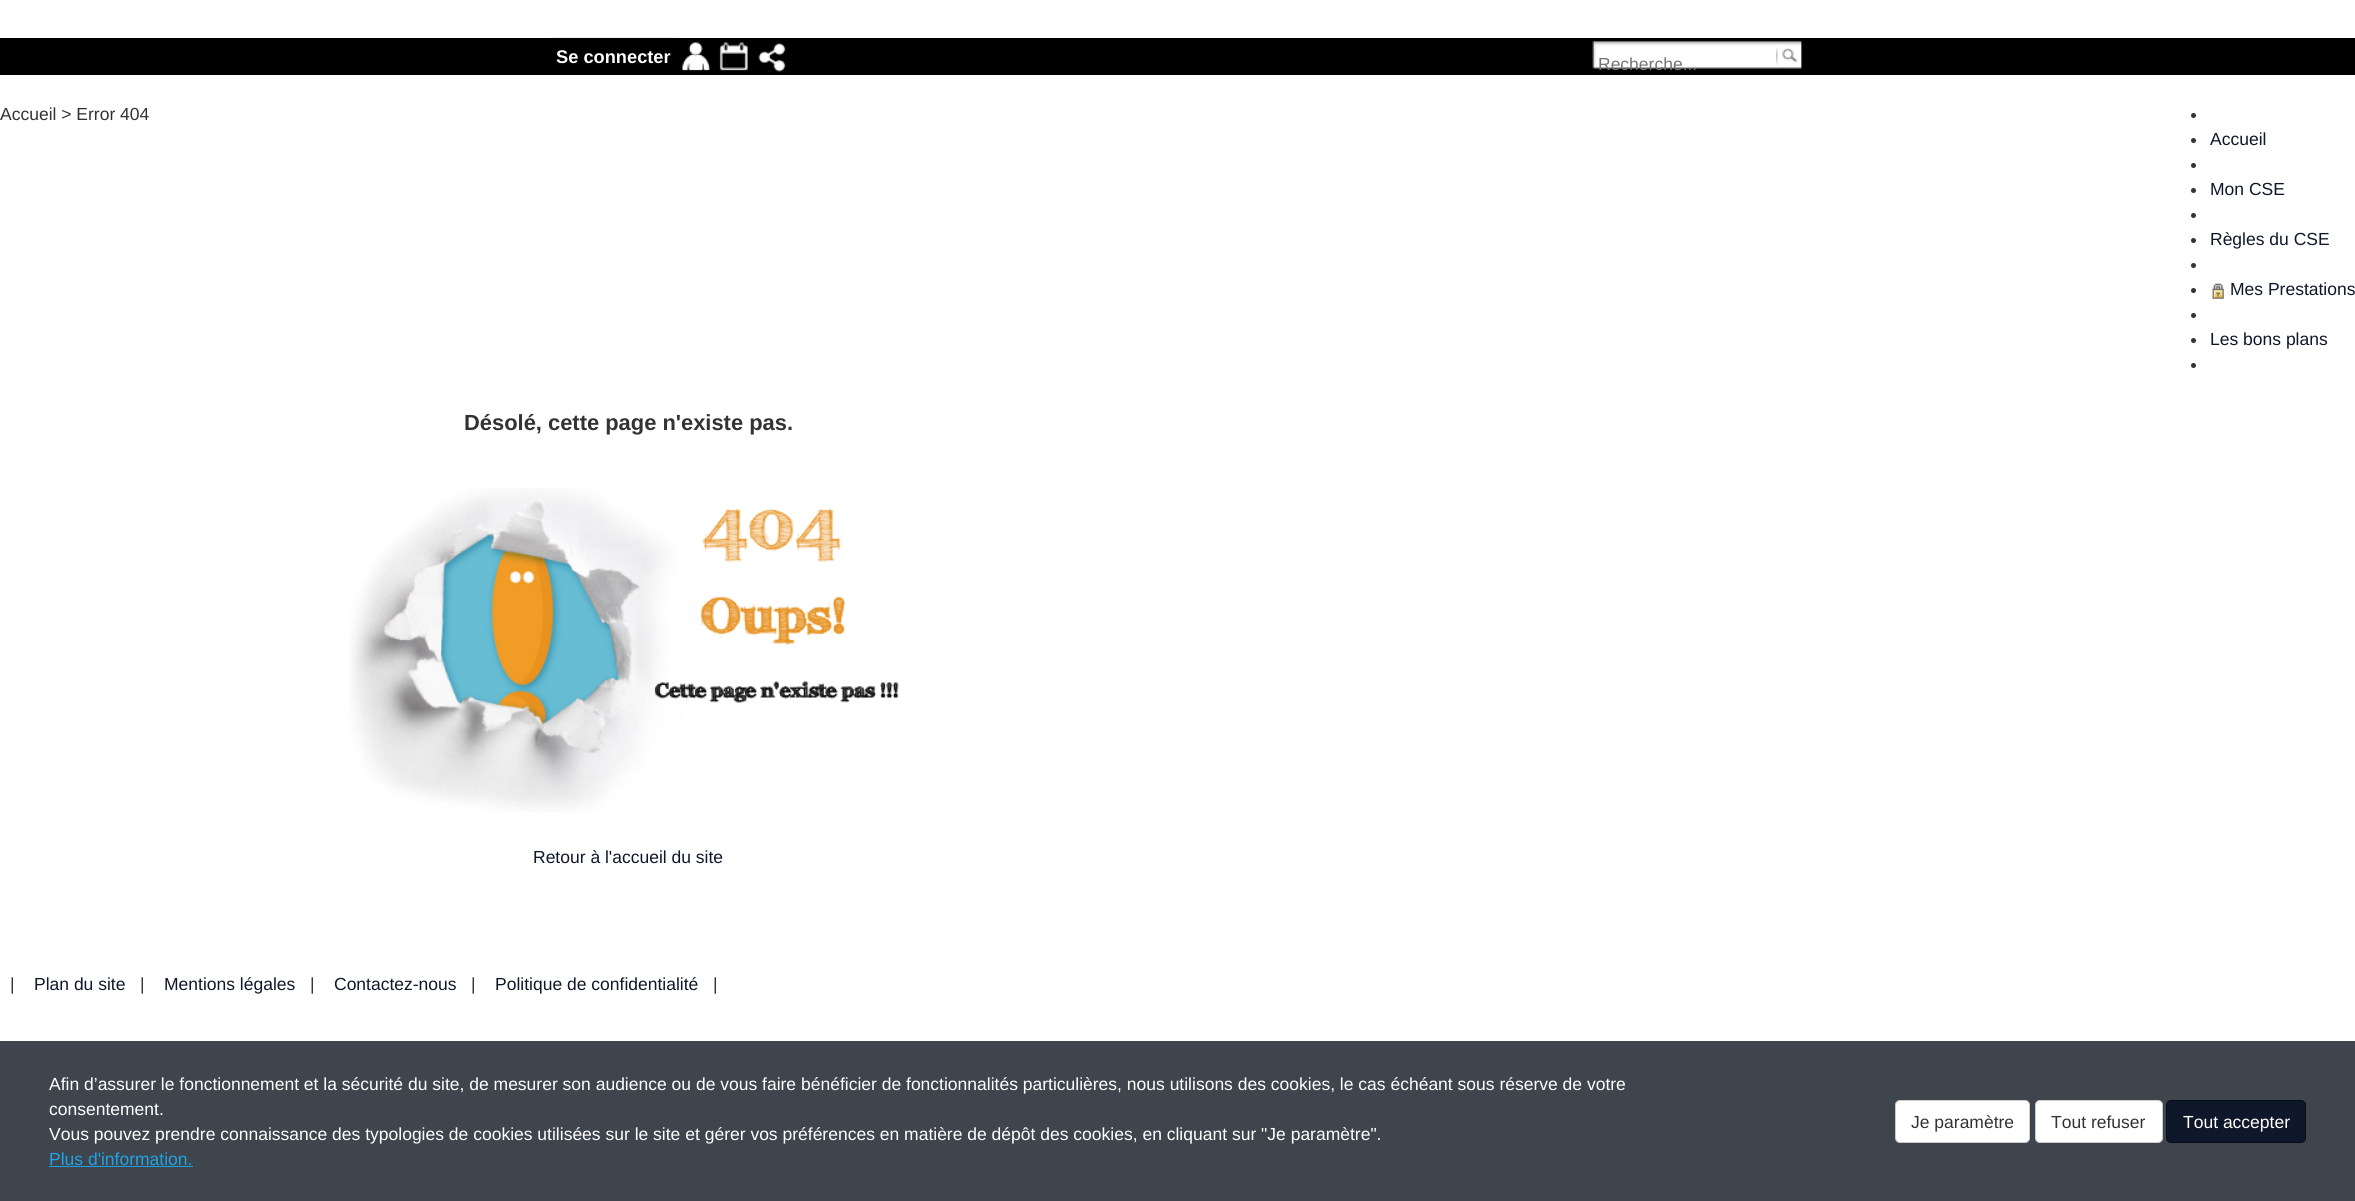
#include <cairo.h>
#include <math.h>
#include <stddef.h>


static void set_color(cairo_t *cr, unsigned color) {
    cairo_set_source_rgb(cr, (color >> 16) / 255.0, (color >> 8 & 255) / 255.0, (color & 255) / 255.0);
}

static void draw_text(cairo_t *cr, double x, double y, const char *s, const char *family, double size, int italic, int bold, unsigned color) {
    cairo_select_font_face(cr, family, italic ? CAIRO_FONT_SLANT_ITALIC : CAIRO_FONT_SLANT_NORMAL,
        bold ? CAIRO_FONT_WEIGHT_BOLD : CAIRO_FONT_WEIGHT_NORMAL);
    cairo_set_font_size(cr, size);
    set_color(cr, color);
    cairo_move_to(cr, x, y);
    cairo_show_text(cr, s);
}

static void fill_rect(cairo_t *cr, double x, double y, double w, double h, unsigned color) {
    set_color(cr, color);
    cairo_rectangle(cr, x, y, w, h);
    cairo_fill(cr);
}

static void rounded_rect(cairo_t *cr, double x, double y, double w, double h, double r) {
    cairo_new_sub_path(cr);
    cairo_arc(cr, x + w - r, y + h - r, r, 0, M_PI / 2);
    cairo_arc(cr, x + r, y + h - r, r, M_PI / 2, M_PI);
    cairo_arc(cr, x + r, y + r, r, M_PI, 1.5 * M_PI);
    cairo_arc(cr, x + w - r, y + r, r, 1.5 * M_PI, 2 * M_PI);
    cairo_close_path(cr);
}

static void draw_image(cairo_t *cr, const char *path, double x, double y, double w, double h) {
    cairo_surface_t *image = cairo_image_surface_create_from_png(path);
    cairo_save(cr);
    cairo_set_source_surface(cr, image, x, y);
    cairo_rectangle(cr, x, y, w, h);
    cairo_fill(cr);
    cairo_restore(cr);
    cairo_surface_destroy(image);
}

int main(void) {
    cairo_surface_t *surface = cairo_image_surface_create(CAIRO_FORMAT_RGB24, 2355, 1201);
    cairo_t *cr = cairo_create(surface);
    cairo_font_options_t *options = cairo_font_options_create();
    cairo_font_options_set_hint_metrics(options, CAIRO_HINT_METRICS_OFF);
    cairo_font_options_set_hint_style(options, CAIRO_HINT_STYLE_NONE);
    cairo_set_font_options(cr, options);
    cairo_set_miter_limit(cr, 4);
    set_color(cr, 0xFFFFFF);
    cairo_paint(cr);
    fill_rect(cr, 0, 38, 2355, 37, 0x000000);
    draw_image(cr, "assets/img1.png", 550, 37, 128, 1);
    draw_text(cr, 556, 63, "Se connecter", "Liberation Sans", 18.25, 0, 1, 0xFFFFFF);
    draw_image(cr, "assets/img2.png", 682, 42, 29, 29);
    draw_image(cr, "assets/img3.png", 719, 42, 29, 29);
    draw_image(cr, "assets/img4.png", 758, 43, 28, 29);
    draw_image(cr, "assets/img5.png", 1592, 41, 211, 28);
    draw_text(cr, 1598, 70, "Recherche...", "Liberation Sans", 17.5, 0, 0, 0x757575);
    draw_image(cr, "assets/img6.png", 1776, 47, 22, 21);
    draw_text(cr, 0, 120, "Accueil > Error 404", "Liberation Sans", 17.5, 0, 0, 0x333333);
    cairo_new_path(cr);
    cairo_arc(cr, 2193.5, 115.5, 2.5, 0, 2 * M_PI);
    cairo_fill(cr);
    cairo_arc(cr, 2193.5, 140.5, 2.5, 0, 2 * M_PI);
    cairo_fill(cr);
    draw_text(cr, 2210, 145, "Accueil", "Liberation Sans", 17.5, 0, 0, 0x0F172A);
    set_color(cr, 0x333333);
    cairo_new_path(cr);
    cairo_arc(cr, 2193.5, 165.5, 2.5, 0, 2 * M_PI);
    cairo_fill(cr);
    cairo_arc(cr, 2193.5, 190.5, 2.5, 0, 2 * M_PI);
    cairo_fill(cr);
    draw_text(cr, 2210, 195, "Mon CSE", "Liberation Sans", 17.5, 0, 0, 0x0F172A);
    set_color(cr, 0x333333);
    cairo_new_path(cr);
    cairo_arc(cr, 2193.5, 215.5, 2.5, 0, 2 * M_PI);
    cairo_fill(cr);
    cairo_arc(cr, 2193.5, 240.5, 2.5, 0, 2 * M_PI);
    cairo_fill(cr);
    draw_text(cr, 2210, 245, "Règles du CSE", "Liberation Sans", 17.5, 0, 0, 0x0F172A);
    set_color(cr, 0x333333);
    cairo_new_path(cr);
    cairo_arc(cr, 2193.5, 265.5, 2.5, 0, 2 * M_PI);
    cairo_fill(cr);
    cairo_arc(cr, 2193.5, 290.5, 2.5, 0, 2 * M_PI);
    cairo_fill(cr);
    draw_image(cr, "assets/img7.png", 2212, 283, 12, 16);
    draw_text(cr, 2230, 295, "Mes Prestations", "Liberation Sans", 17.5, 0, 0, 0x0F172A);
    set_color(cr, 0x333333);
    cairo_new_path(cr);
    cairo_arc(cr, 2193.5, 315.5, 2.5, 0, 2 * M_PI);
    cairo_fill(cr);
    cairo_arc(cr, 2193.5, 340.5, 2.5, 0, 2 * M_PI);
    cairo_fill(cr);
    draw_text(cr, 2210, 345, "Les bons plans", "Liberation Sans", 17.5, 0, 0, 0x0F172A);
    set_color(cr, 0x333333);
    cairo_new_path(cr);
    cairo_arc(cr, 2193.5, 365.5, 2.5, 0, 2 * M_PI);
    cairo_fill(cr);
    draw_text(cr, 464, 430, "Désolé, cette page n'existe pas.", "Liberation Sans", 21.9, 0, 1, 0x333333);
    draw_image(cr, "assets/img8.png", 349, 488, 550, 324);
    draw_text(cr, 533, 863, "Retour à l'accueil du site", "Liberation Sans", 17.5, 0, 0, 0x0F172A);
    draw_text(cr, 10, 990, "|", "Liberation Sans", 17.5, 0, 0, 0x333333);
    draw_text(cr, 34, 990, "Plan du site", "Liberation Sans", 17.5, 0, 0, 0x0F172A);
    draw_text(cr, 140, 990, "|", "Liberation Sans", 17.5, 0, 0, 0x333333);
    draw_text(cr, 164, 990, "Mentions légales", "Liberation Sans", 17.5, 0, 0, 0x0F172A);
    draw_text(cr, 310, 990, "|", "Liberation Sans", 17.5, 0, 0, 0x333333);
    draw_text(cr, 334, 990, "Contactez-nous", "Liberation Sans", 17.5, 0, 0, 0x0F172A);
    draw_text(cr, 471, 990, "|", "Liberation Sans", 17.5, 0, 0, 0x333333);
    draw_text(cr, 495, 990, "Politique de confidentialité", "Liberation Sans", 17.5, 0, 0, 0x0F172A);
    draw_text(cr, 713, 990, "|", "Liberation Sans", 17.5, 0, 0, 0x333333);
    fill_rect(cr, 0, 1041, 2355, 160, 0x3E454D);
    draw_text(cr, 49, 1090, "Afin d’assurer le fonctionnement et la sécurité du site, de mesurer son audience ou de vous faire bénéficier de fonctionnalités particulières, nous utilisons des cookies, le cas échéant sous réserve de votre", "Liberation Sans", 17.5, 0, 0, 0xFFFFFF);
    draw_text(cr, 49, 1115, "consentement.", "Liberation Sans", 17.5, 0, 0, 0xFFFFFF);
    draw_text(cr, 49, 1140, "Vous pouvez prendre connaissance des typologies de cookies utilisées sur le site et gérer vos préférences en matière de dépôt des cookies, en cliquant sur \"Je paramètre\".", "Liberation Sans", 17.5, 0, 0, 0xFFFFFF);
    draw_text(cr, 49, 1165, "Plus d'information.", "Liberation Sans", 17.5, 0, 0, 0x20A3E3);
    fill_rect(cr, 49, 1166, 144, 1, 0x20A3E3);
    set_color(cr, 0xFFFFFF);
    rounded_rect(cr, 1895.5, 1100.5, 134, 42, 4.5);
    cairo_fill_preserve(cr);
    set_color(cr, 0xCCCCCC);
    cairo_set_line_width(cr, 1);
    cairo_stroke(cr);
    draw_text(cr, 1911, 1128, "Je paramètre", "Liberation Sans", 17.5, 0, 0, 0x333333);
    set_color(cr, 0xFFFFFF);
    rounded_rect(cr, 2035.5, 1100.5, 127, 42, 4.5);
    cairo_fill_preserve(cr);
    set_color(cr, 0xCCCCCC);
    cairo_stroke(cr);
    draw_text(cr, 2051, 1128, "Tout refuser", "Liberation Sans", 17.5, 0, 0, 0x333333);
    set_color(cr, 0x0F172A);
    rounded_rect(cr, 2166.5, 1100.5, 139, 42, 4.5);
    cairo_fill_preserve(cr);
    set_color(cr, 0x080D17);
    cairo_stroke(cr);
    draw_text(cr, 2183, 1128, "Tout accepter", "Liberation Sans", 17.5, 0, 0, 0xFFFFFF);
    cairo_surface_write_to_png(surface, "output.png");
    cairo_font_options_destroy(options);
    cairo_destroy(cr);
    cairo_surface_destroy(surface);
    return 0;
}
